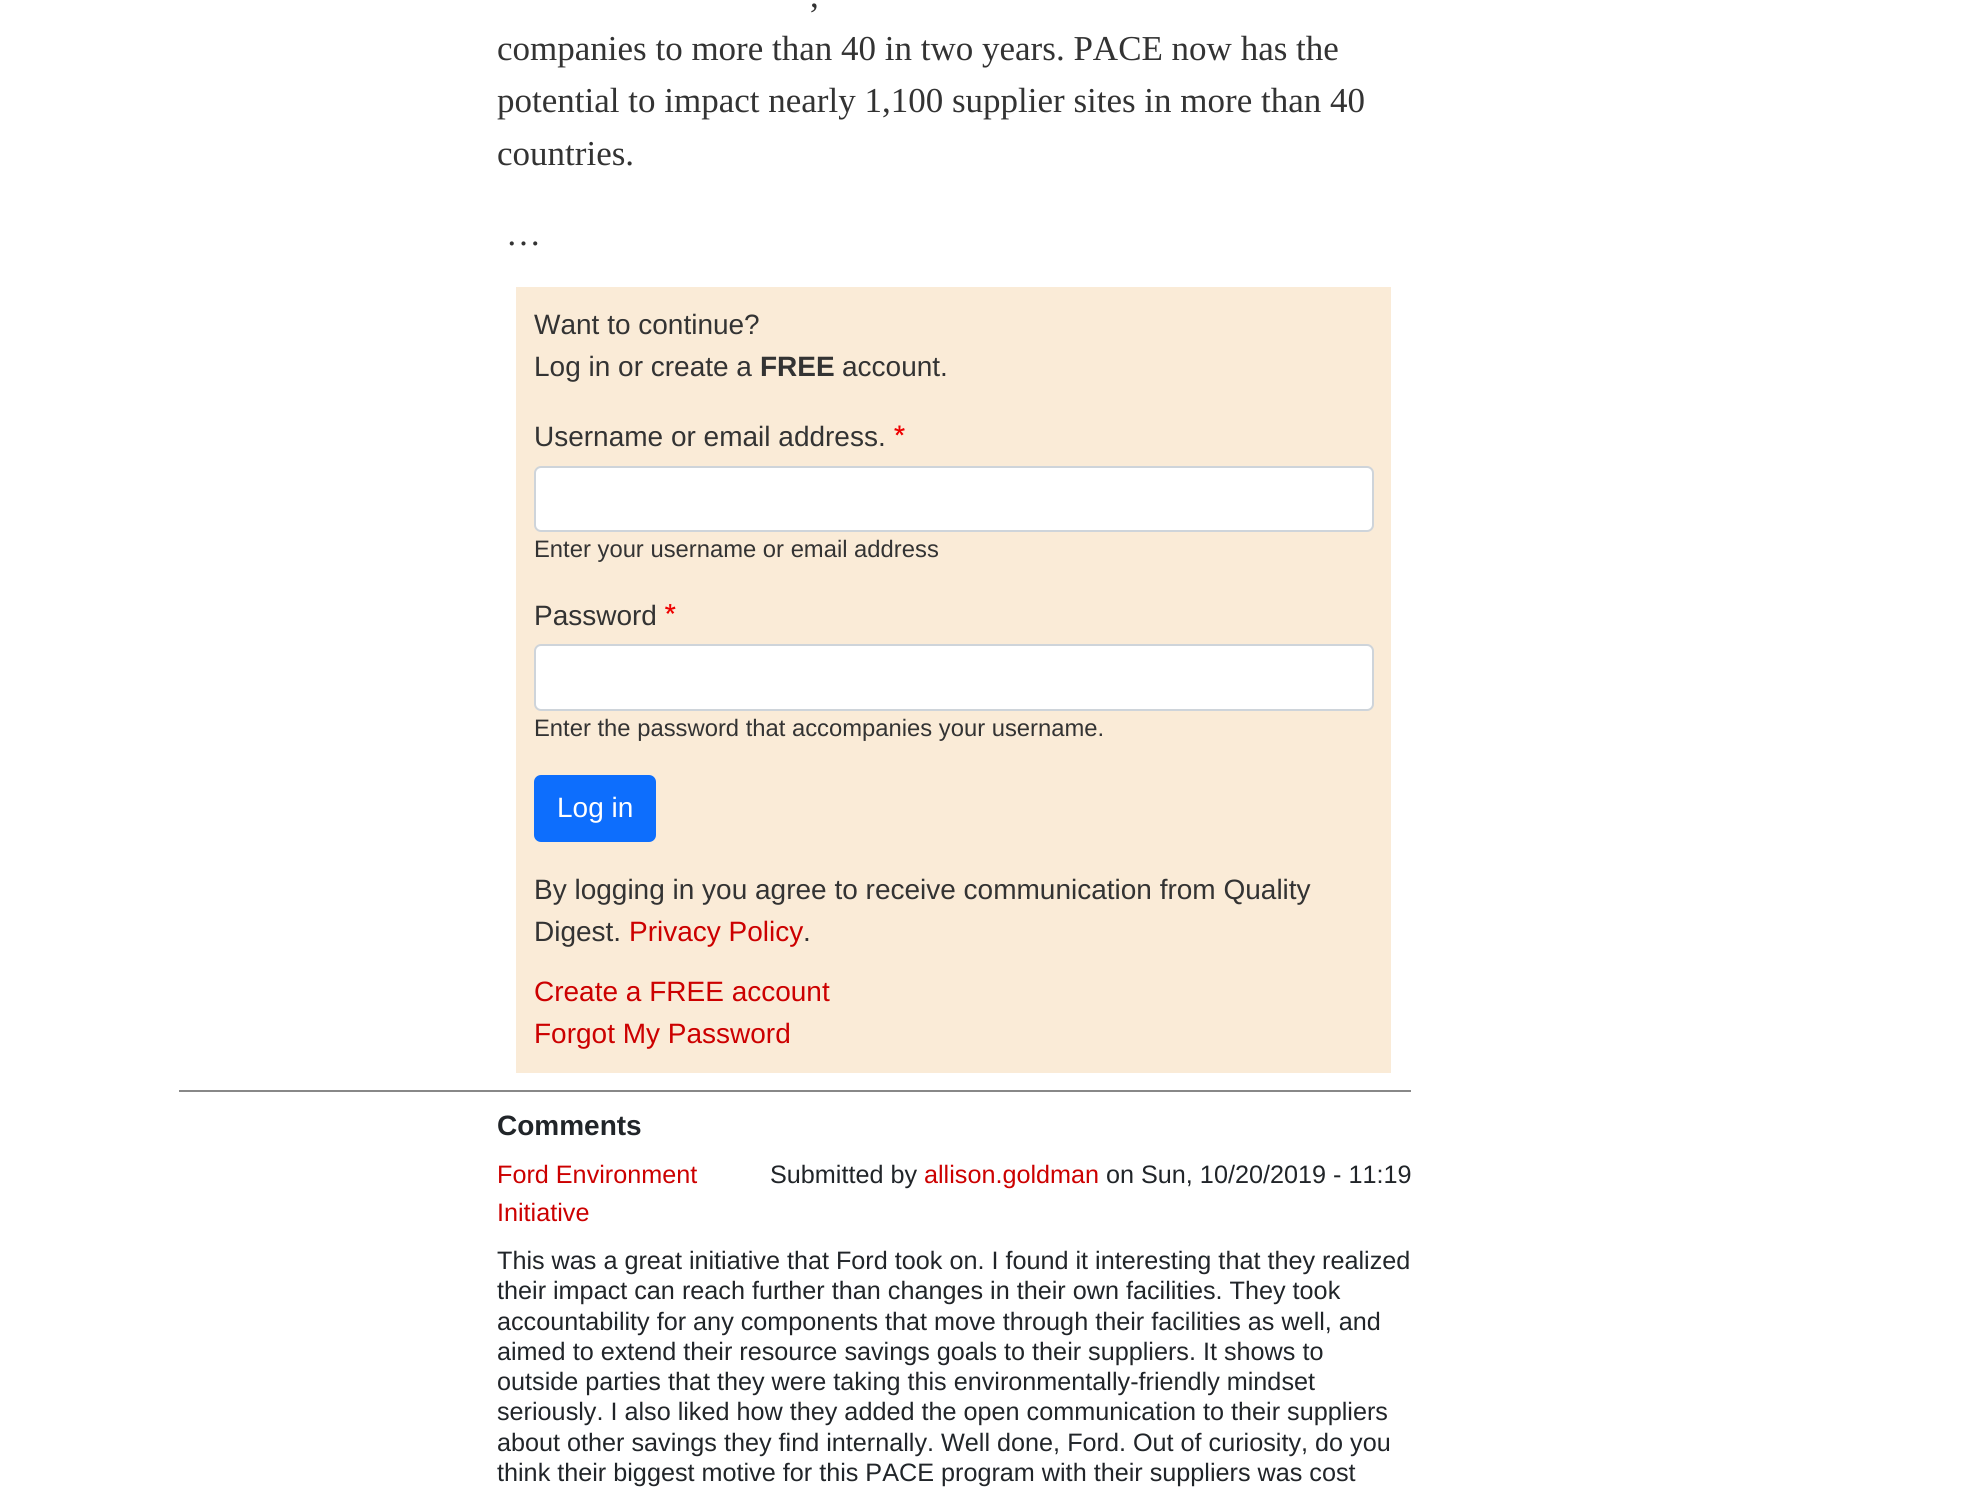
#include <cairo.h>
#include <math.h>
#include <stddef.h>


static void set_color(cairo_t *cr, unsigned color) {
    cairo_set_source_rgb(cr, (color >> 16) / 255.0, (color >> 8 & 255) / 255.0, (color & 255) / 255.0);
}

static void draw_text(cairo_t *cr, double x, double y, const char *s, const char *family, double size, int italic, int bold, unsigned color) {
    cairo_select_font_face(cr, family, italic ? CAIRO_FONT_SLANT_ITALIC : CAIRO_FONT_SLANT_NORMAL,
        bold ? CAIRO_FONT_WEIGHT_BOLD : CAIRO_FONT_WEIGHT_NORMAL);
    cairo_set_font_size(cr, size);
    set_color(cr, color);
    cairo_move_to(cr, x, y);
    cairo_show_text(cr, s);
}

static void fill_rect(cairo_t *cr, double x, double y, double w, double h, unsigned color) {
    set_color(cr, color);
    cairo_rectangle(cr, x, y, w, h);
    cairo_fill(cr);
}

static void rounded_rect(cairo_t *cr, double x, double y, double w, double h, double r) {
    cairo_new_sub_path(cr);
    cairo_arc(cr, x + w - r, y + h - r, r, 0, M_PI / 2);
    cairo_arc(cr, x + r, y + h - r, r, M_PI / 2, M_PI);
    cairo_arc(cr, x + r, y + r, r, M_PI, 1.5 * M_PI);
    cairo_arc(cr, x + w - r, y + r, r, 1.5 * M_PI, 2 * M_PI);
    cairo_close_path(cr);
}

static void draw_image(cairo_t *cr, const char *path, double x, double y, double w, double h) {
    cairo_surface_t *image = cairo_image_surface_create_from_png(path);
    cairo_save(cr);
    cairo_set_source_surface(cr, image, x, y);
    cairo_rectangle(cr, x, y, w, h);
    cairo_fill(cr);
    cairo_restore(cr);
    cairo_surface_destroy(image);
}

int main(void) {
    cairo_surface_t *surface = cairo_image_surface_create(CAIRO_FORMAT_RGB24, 1983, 1491);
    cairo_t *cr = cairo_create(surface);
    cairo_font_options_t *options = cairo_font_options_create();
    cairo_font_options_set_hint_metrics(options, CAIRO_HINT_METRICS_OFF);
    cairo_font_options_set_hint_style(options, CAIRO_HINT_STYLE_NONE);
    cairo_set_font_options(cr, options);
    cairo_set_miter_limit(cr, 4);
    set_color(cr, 0xFFFFFF);
    cairo_paint(cr);
    draw_text(cr, 810, 7, ",", "Liberation Serif", 35, 0, 0, 0x333333);
    draw_text(cr, 497, 60, "companies to more than 40 in two years. PACE now has the", "Liberation Serif", 35, 0, 0, 0x333333);
    draw_text(cr, 497, 112, "potential to impact nearly 1,100 supplier sites in more than 40", "Liberation Serif", 35, 0, 0, 0x333333);
    draw_text(cr, 497, 165, "countries.", "Liberation Serif", 35, 0, 0, 0x333333);
    draw_text(cr, 506, 245, "…", "Liberation Serif", 35, 0, 0, 0x333333);
    fill_rect(cr, 516, 287, 875, 786, 0xFAEBD7);
    draw_text(cr, 534, 334, "Want to continue?", "Liberation Sans", 28, 0, 0, 0x333333);
    draw_text(cr, 534, 376, "Log in or create a", "Liberation Sans", 28, 0, 0, 0x333333);
    draw_text(cr, 760, 376, "FREE", "Liberation Sans", 28, 0, 1, 0x333333);
    draw_text(cr, 842, 376, "account.", "Liberation Sans", 28, 0, 0, 0x333333);
    draw_text(cr, 534, 446, "Username or email address.", "Liberation Sans", 28, 0, 0, 0x333333);
    draw_image(cr, "assets/img1.png", 894, 425, 11, 11);
    set_color(cr, 0xFFFFFF);
    rounded_rect(cr, 535, 467, 838, 64, 6);
    cairo_fill_preserve(cr);
    set_color(cr, 0xCED4DA);
    cairo_stroke(cr);
    draw_text(cr, 534, 557, "Enter your username or email address", "Liberation Sans", 23.8, 0, 0, 0x333333);
    draw_text(cr, 534, 625, "Password", "Liberation Sans", 28, 0, 0, 0x333333);
    draw_image(cr, "assets/img2.png", 665, 604, 11, 10);
    set_color(cr, 0xFFFFFF);
    rounded_rect(cr, 535, 645, 838, 65, 6);
    cairo_fill_preserve(cr);
    set_color(cr, 0xCED4DA);
    cairo_stroke(cr);
    draw_text(cr, 534, 736, "Enter the password that accompanies your username.", "Liberation Sans", 23.8, 0, 0, 0x333333);
    set_color(cr, 0x0D6EFD);
    rounded_rect(cr, 535, 776, 120, 65, 6);
    cairo_fill_preserve(cr);
    cairo_stroke(cr);
    draw_text(cr, 557, 817, "Log in", "Liberation Sans", 28, 0, 0, 0xFFFFFF);
    draw_text(cr, 534, 899, "By logging in you agree to receive communication from Quality", "Liberation Sans", 28, 0, 0, 0x333333);
    draw_text(cr, 534, 941, "Digest.", "Liberation Sans", 28, 0, 0, 0x333333);
    draw_text(cr, 629, 941, "Privacy Policy", "Liberation Sans", 28, 0, 0, 0xCC0000);
    draw_text(cr, 803, 941, ".", "Liberation Sans", 28, 0, 0, 0x333333);
    draw_text(cr, 534, 1001, "Create a FREE account", "Liberation Sans", 28, 0, 0, 0xCC0000);
    draw_text(cr, 534, 1043, "Forgot My Password", "Liberation Sans", 28, 0, 0, 0xCC0000);
    fill_rect(cr, 179, 1090, 1232, 2, 0x888888);
    draw_text(cr, 497, 1135, "Comments", "Liberation Sans", 28, 0, 1, 0x212529);
    draw_text(cr, 497, 1183, "Ford Environment", "Liberation Sans", 25.2, 0, 0, 0xCC0000);
    draw_text(cr, 497, 1221, "Initiative", "Liberation Sans", 25.2, 0, 0, 0xCC0000);
    draw_text(cr, 497, 1269, "This was a great initiative that Ford took on. I found it interesting that they realized", "Liberation Sans", 25.2, 0, 0, 0x212529);
    draw_text(cr, 497, 1299, "their impact can reach further than changes in their own facilities. They took", "Liberation Sans", 25.2, 0, 0, 0x212529);
    draw_text(cr, 497, 1330, "accountability for any components that move through their facilities as well, and", "Liberation Sans", 25.2, 0, 0, 0x212529);
    draw_text(cr, 497, 1360, "aimed to extend their resource savings goals to their suppliers. It shows to", "Liberation Sans", 25.2, 0, 0, 0x212529);
    draw_text(cr, 497, 1390, "outside parties that they were taking this environmentally-friendly mindset", "Liberation Sans", 25.2, 0, 0, 0x212529);
    draw_text(cr, 497, 1420, "seriously. I also liked how they added the open communication to their suppliers", "Liberation Sans", 25.2, 0, 0, 0x212529);
    draw_text(cr, 497, 1451, "about other savings they find internally. Well done, Ford. Out of curiosity, do you", "Liberation Sans", 25.2, 0, 0, 0x212529);
    draw_text(cr, 497, 1481, "think their biggest motive for this PACE program with their suppliers was cost", "Liberation Sans", 25.2, 0, 0, 0x212529);
    draw_text(cr, 770, 1183, "Submitted by", "Liberation Sans", 25.2, 0, 0, 0x212529);
    draw_text(cr, 924, 1183, "allison.goldman", "Liberation Sans", 25.2, 0, 0, 0xCC0000);
    draw_text(cr, 1106, 1183, "on Sun, 10/20/2019 - 11:19", "Liberation Sans", 25.2, 0, 0, 0x212529);
    cairo_surface_write_to_png(surface, "output.png");
    cairo_font_options_destroy(options);
    cairo_destroy(cr);
    cairo_surface_destroy(surface);
    return 0;
}
